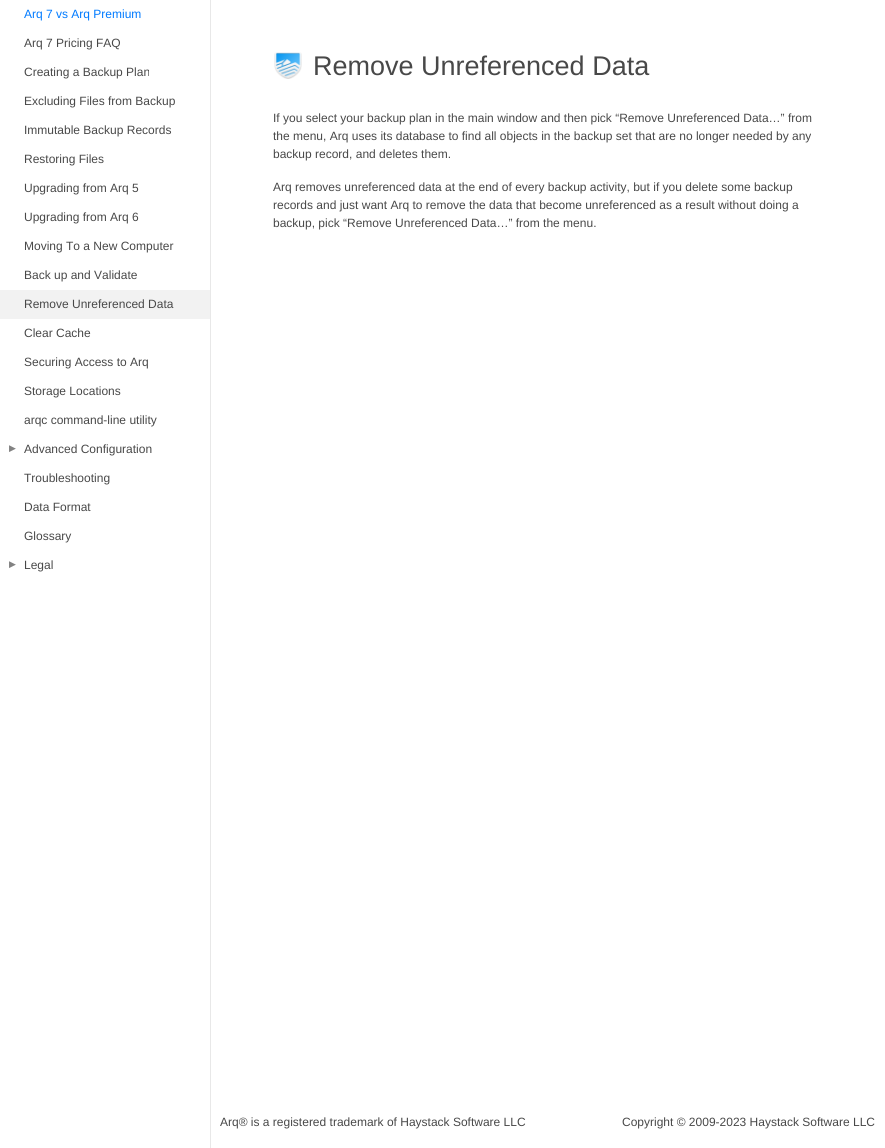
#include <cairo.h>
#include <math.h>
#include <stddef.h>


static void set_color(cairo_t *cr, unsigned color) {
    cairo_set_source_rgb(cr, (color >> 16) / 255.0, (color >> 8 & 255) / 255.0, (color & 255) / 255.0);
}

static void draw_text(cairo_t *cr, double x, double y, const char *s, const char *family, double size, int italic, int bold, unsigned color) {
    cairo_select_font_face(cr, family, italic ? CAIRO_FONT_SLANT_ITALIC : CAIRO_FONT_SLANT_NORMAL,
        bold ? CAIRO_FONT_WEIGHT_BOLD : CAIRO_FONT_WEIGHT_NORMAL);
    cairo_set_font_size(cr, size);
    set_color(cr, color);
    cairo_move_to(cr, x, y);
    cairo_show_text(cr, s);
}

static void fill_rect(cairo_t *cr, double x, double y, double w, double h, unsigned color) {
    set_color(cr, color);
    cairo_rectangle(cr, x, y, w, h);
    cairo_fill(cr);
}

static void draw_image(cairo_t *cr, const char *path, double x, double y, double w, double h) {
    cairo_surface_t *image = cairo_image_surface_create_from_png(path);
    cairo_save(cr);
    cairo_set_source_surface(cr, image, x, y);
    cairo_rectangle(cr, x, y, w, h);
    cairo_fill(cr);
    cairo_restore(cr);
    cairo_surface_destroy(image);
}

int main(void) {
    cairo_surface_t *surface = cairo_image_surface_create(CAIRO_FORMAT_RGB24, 885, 1148);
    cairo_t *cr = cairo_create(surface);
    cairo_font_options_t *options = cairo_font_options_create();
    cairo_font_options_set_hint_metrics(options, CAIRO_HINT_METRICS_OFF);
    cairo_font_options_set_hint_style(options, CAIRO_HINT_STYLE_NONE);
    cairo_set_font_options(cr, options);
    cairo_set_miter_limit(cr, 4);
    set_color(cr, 0xFFFFFF);
    cairo_paint(cr);
    fill_rect(cr, 210, 0, 1, 1148, 0xE8E8E8);
    draw_text(cr, 24, 18, "Arq 7 vs Arq Premium", "Liberation Sans", 12, 0, 0, 0x007AFF);
    draw_text(cr, 24, 47, "Arq 7 Pricing FAQ", "Liberation Sans", 12, 0, 0, 0x484848);
    draw_text(cr, 24, 76, "Creating a Backup Plan", "Liberation Sans", 12, 0, 0, 0x484848);
    draw_text(cr, 24, 105, "Excluding Files from Backup", "Liberation Sans", 12, 0, 0, 0x484848);
    draw_text(cr, 24, 134, "Immutable Backup Records", "Liberation Sans", 12, 0, 0, 0x484848);
    draw_text(cr, 24, 163, "Restoring Files", "Liberation Sans", 12, 0, 0, 0x484848);
    draw_text(cr, 24, 192, "Upgrading from Arq 5", "Liberation Sans", 12, 0, 0, 0x484848);
    draw_text(cr, 24, 221, "Upgrading from Arq 6", "Liberation Sans", 12, 0, 0, 0x484848);
    draw_text(cr, 24, 250, "Moving To a New Computer", "Liberation Sans", 12, 0, 0, 0x484848);
    draw_text(cr, 24, 279, "Back up and Validate", "Liberation Sans", 12, 0, 0, 0x484848);
    fill_rect(cr, 0, 290, 210, 29, 0xF2F2F2);
    draw_text(cr, 24, 308, "Remove Unreferenced Data", "Liberation Sans", 12, 0, 0, 0x484848);
    draw_text(cr, 24, 337, "Clear Cache", "Liberation Sans", 12, 0, 0, 0x484848);
    draw_text(cr, 24, 366, "Securing Access to Arq", "Liberation Sans", 12, 0, 0, 0x484848);
    draw_text(cr, 24, 395, "Storage Locations", "Liberation Sans", 12, 0, 0, 0x484848);
    draw_text(cr, 24, 424, "arqc command-line utility", "Liberation Sans", 12, 0, 0, 0x484848);
    draw_text(cr, 9, 451, "▶", "DejaVu Sans", 9, 0, 0, 0x828282);
    draw_text(cr, 24, 453, "Advanced Configuration", "Liberation Sans", 12, 0, 0, 0x484848);
    draw_text(cr, 24, 482, "Troubleshooting", "Liberation Sans", 12, 0, 0, 0x484848);
    draw_text(cr, 24, 511, "Data Format", "Liberation Sans", 12, 0, 0, 0x484848);
    draw_text(cr, 24, 540, "Glossary", "Liberation Sans", 12, 0, 0, 0x484848);
    draw_text(cr, 9, 567, "▶", "DejaVu Sans", 9, 0, 0, 0x828282);
    draw_text(cr, 24, 569, "Legal", "Liberation Sans", 12, 0, 0, 0x484848);
    draw_image(cr, "assets/img1.png", 274, 52, 28, 27);
    draw_text(cr, 313, 75, "Remove Unreferenced Data", "Liberation Sans", 27, 0, 0, 0x484848);
    draw_text(cr, 273, 122, "If you select your backup plan in the main window and then pick “Remove Unreferenced Data…” from", "Liberation Sans", 12, 0, 0, 0x484848);
    draw_text(cr, 273, 140, "the menu, Arq uses its database to find all objects in the backup set that are no longer needed by any", "Liberation Sans", 12, 0, 0, 0x484848);
    draw_text(cr, 273, 158, "backup record, and deletes them.", "Liberation Sans", 12, 0, 0, 0x484848);
    draw_text(cr, 273, 191, "Arq removes unreferenced data at the end of every backup activity, but if you delete some backup", "Liberation Sans", 12, 0, 0, 0x484848);
    draw_text(cr, 273, 209, "records and just want Arq to remove the data that become unreferenced as a result without doing a", "Liberation Sans", 12, 0, 0, 0x484848);
    draw_text(cr, 273, 227, "backup, pick “Remove Unreferenced Data…” from the menu.", "Liberation Sans", 12, 0, 0, 0x484848);
    draw_text(cr, 220, 1126, "Arq® is a registered trademark of Haystack Software LLC", "Liberation Sans", 12, 0, 0, 0x484848);
    draw_text(cr, 622, 1126, "Copyright © 2009-2023 Haystack Software LLC", "Liberation Sans", 12, 0, 0, 0x484848);
    cairo_surface_write_to_png(surface, "output.png");
    cairo_font_options_destroy(options);
    cairo_destroy(cr);
    cairo_surface_destroy(surface);
    return 0;
}
